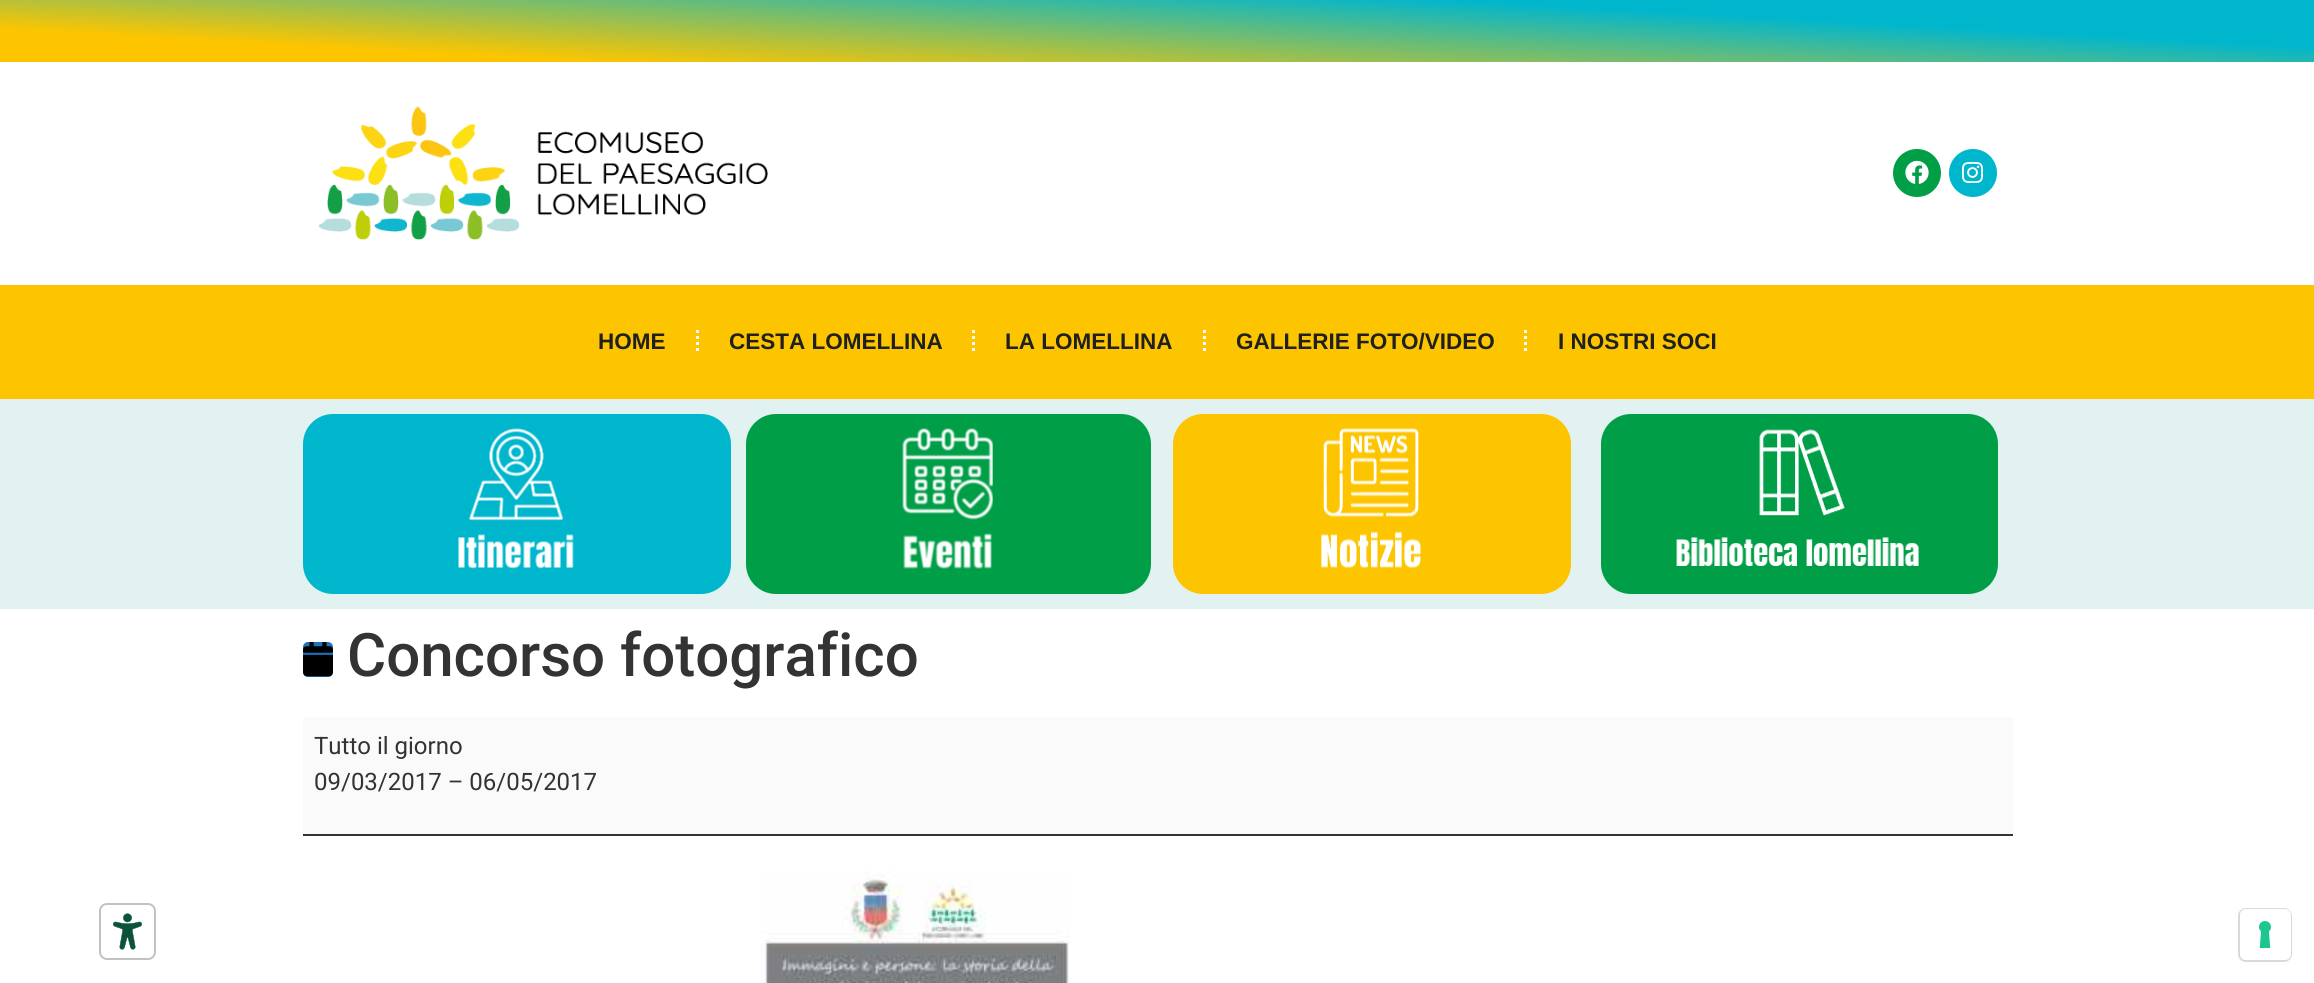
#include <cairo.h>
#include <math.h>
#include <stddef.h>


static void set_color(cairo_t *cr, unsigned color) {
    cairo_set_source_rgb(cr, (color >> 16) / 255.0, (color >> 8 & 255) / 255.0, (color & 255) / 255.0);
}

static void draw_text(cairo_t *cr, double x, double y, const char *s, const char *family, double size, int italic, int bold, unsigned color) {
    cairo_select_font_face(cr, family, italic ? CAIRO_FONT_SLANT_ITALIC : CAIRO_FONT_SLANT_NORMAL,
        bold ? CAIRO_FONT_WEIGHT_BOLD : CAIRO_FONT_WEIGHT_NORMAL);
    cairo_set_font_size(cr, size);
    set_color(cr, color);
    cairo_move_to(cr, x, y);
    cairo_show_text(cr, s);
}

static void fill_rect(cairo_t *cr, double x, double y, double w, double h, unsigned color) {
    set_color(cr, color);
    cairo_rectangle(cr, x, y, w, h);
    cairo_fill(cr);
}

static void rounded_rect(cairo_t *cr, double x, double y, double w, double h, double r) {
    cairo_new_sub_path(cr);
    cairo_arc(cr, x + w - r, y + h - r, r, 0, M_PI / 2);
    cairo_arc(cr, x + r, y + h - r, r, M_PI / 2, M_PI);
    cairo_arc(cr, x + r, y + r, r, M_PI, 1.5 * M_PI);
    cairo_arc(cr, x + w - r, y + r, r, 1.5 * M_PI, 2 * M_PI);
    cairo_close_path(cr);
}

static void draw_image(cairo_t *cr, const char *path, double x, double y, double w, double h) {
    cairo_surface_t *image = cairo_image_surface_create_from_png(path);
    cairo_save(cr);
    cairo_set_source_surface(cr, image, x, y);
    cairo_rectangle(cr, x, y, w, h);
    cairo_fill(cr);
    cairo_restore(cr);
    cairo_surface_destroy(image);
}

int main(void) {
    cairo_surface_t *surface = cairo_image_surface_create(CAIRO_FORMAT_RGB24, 2314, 983);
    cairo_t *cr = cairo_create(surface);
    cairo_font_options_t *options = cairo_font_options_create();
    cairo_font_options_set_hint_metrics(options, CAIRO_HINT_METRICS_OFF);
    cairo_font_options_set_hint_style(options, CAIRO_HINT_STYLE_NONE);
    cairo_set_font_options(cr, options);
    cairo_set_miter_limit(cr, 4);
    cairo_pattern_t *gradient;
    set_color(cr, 0xFFFFFF);
    cairo_paint(cr);
    gradient = cairo_pattern_create_linear(1162, -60, 1152, 122);
    cairo_pattern_add_color_stop_rgba(gradient, 0.24, 0, 0.714, 0.804, 1);
    cairo_pattern_add_color_stop_rgba(gradient, 0.84, 0.992, 0.773, 0, 1);
    cairo_set_source(cr, gradient);
    cairo_pattern_destroy(gradient);
    cairo_rectangle(cr, 0, 0, 2314, 62);
    cairo_fill(cr);
    draw_image(cr, "assets/img1.png", 318, 106, 450, 134);
    set_color(cr, 0x009E46);
    cairo_arc(cr, 1917, 173, 24, 0, 2 * M_PI);
    cairo_fill(cr);
    draw_image(cr, "assets/img2.png", 1905, 160, 24, 24);
    set_color(cr, 0x00B6CD);
    cairo_arc(cr, 1973, 173, 24, 0, 2 * M_PI);
    cairo_fill(cr);
    draw_image(cr, "assets/img3.png", 1962, 161, 22, 22);
    fill_rect(cr, 0, 285, 2314, 114, 0xFDC500);
    draw_text(cr, 598, 349, "HOME", "Liberation Sans", 22.5, 0, 1, 0x202020);
    cairo_new_path(cr);
    cairo_move_to(cr, 697.5, 330);
    cairo_line_to(cr, 697.5, 354);
    set_color(cr, 0xFBFBFB);
    cairo_set_line_width(cr, 3);
    cairo_set_dash(cr, (double[]){3, 3}, 2, 0);
    cairo_stroke(cr);
    draw_text(cr, 729, 349, "CESTA LOMELLINA", "Liberation Sans", 22.5, 0, 1, 0x202020);
    cairo_new_path(cr);
    cairo_move_to(cr, 973.5, 330);
    cairo_line_to(cr, 973.5, 354);
    set_color(cr, 0xFBFBFB);
    cairo_stroke(cr);
    draw_text(cr, 1005, 349, "LA LOMELLINA", "Liberation Sans", 22.5, 0, 1, 0x202020);
    cairo_new_path(cr);
    cairo_move_to(cr, 1204.5, 330);
    cairo_line_to(cr, 1204.5, 354);
    set_color(cr, 0xFBFBFB);
    cairo_stroke(cr);
    draw_text(cr, 1236, 349, "GALLERIE FOTO/VIDEO", "Liberation Sans", 22.5, 0, 1, 0x202020);
    cairo_new_path(cr);
    cairo_move_to(cr, 1525.5, 330);
    cairo_line_to(cr, 1525.5, 354);
    set_color(cr, 0xFBFBFB);
    cairo_stroke(cr);
    draw_text(cr, 1558, 349, "I NOSTRI SOCI", "Liberation Sans", 22.5, 0, 1, 0x202020);
    fill_rect(cr, 0, 399, 2314, 210, 0xE1F2F1);
    set_color(cr, 0x00B6CD);
    rounded_rect(cr, 303, 414, 428, 180, 30);
    cairo_fill(cr);
    draw_image(cr, "assets/img4.png", 458, 428, 116, 141);
    set_color(cr, 0x009E46);
    rounded_rect(cr, 746, 414, 405, 180, 30);
    cairo_fill(cr);
    draw_image(cr, "assets/img5.png", 902, 428, 91, 141);
    set_color(cr, 0xFDC500);
    rounded_rect(cr, 1173, 414, 398, 180, 30);
    cairo_fill(cr);
    draw_image(cr, "assets/img6.png", 1321, 428, 100, 141);
    set_color(cr, 0x009E46);
    rounded_rect(cr, 1601, 414, 397, 180, 30);
    cairo_fill(cr);
    draw_image(cr, "assets/img7.png", 1676, 429, 243, 137);
    set_color(cr, 0x1E73BE);
    rounded_rect(cr, 303, 642, 30, 35, 5);
    cairo_fill(cr);
    draw_image(cr, "assets/img8.png", 303, 642, 30, 35);
    draw_text(cr, 347, 676, "Concorso fotografico", "Roboto Medium", 60, 0, 0, 0x333333);
    fill_rect(cr, 303, 717, 1710, 117, 0xFAFAFA);
    fill_rect(cr, 303, 834, 1710, 2, 0x333333);
    draw_text(cr, 314, 754, "Tutto il giorno", "Roboto", 24, 0, 0, 0x333333);
    draw_text(cr, 314, 790, "09/03/2017 – 06/05/2017", "Roboto", 24, 0, 0, 0x333333);
    draw_image(cr, "assets/img9.png", 761, 871, 309, 112);
    draw_image(cr, "assets/img10.png", 113, 913, 29, 37);
    rounded_rect(cr, 100, 904, 55, 55, 7);
    set_color(cr, 0xC2C2C2);
    cairo_set_line_width(cr, 2);
    cairo_set_dash(cr, NULL, 0, 0);
    cairo_stroke(cr);
    rounded_rect(cr, 2239, 909, 52, 52, 7);
    set_color(cr, 0xD9D9D9);
    cairo_stroke(cr);
    set_color(cr, 0xFFFFFF);
    rounded_rect(cr, 2240, 909, 51, 51, 6);
    cairo_fill(cr);
    draw_image(cr, "assets/img11.png", 2259, 921, 12, 27);
    cairo_surface_write_to_png(surface, "output.png");
    cairo_font_options_destroy(options);
    cairo_destroy(cr);
    cairo_surface_destroy(surface);
    return 0;
}
